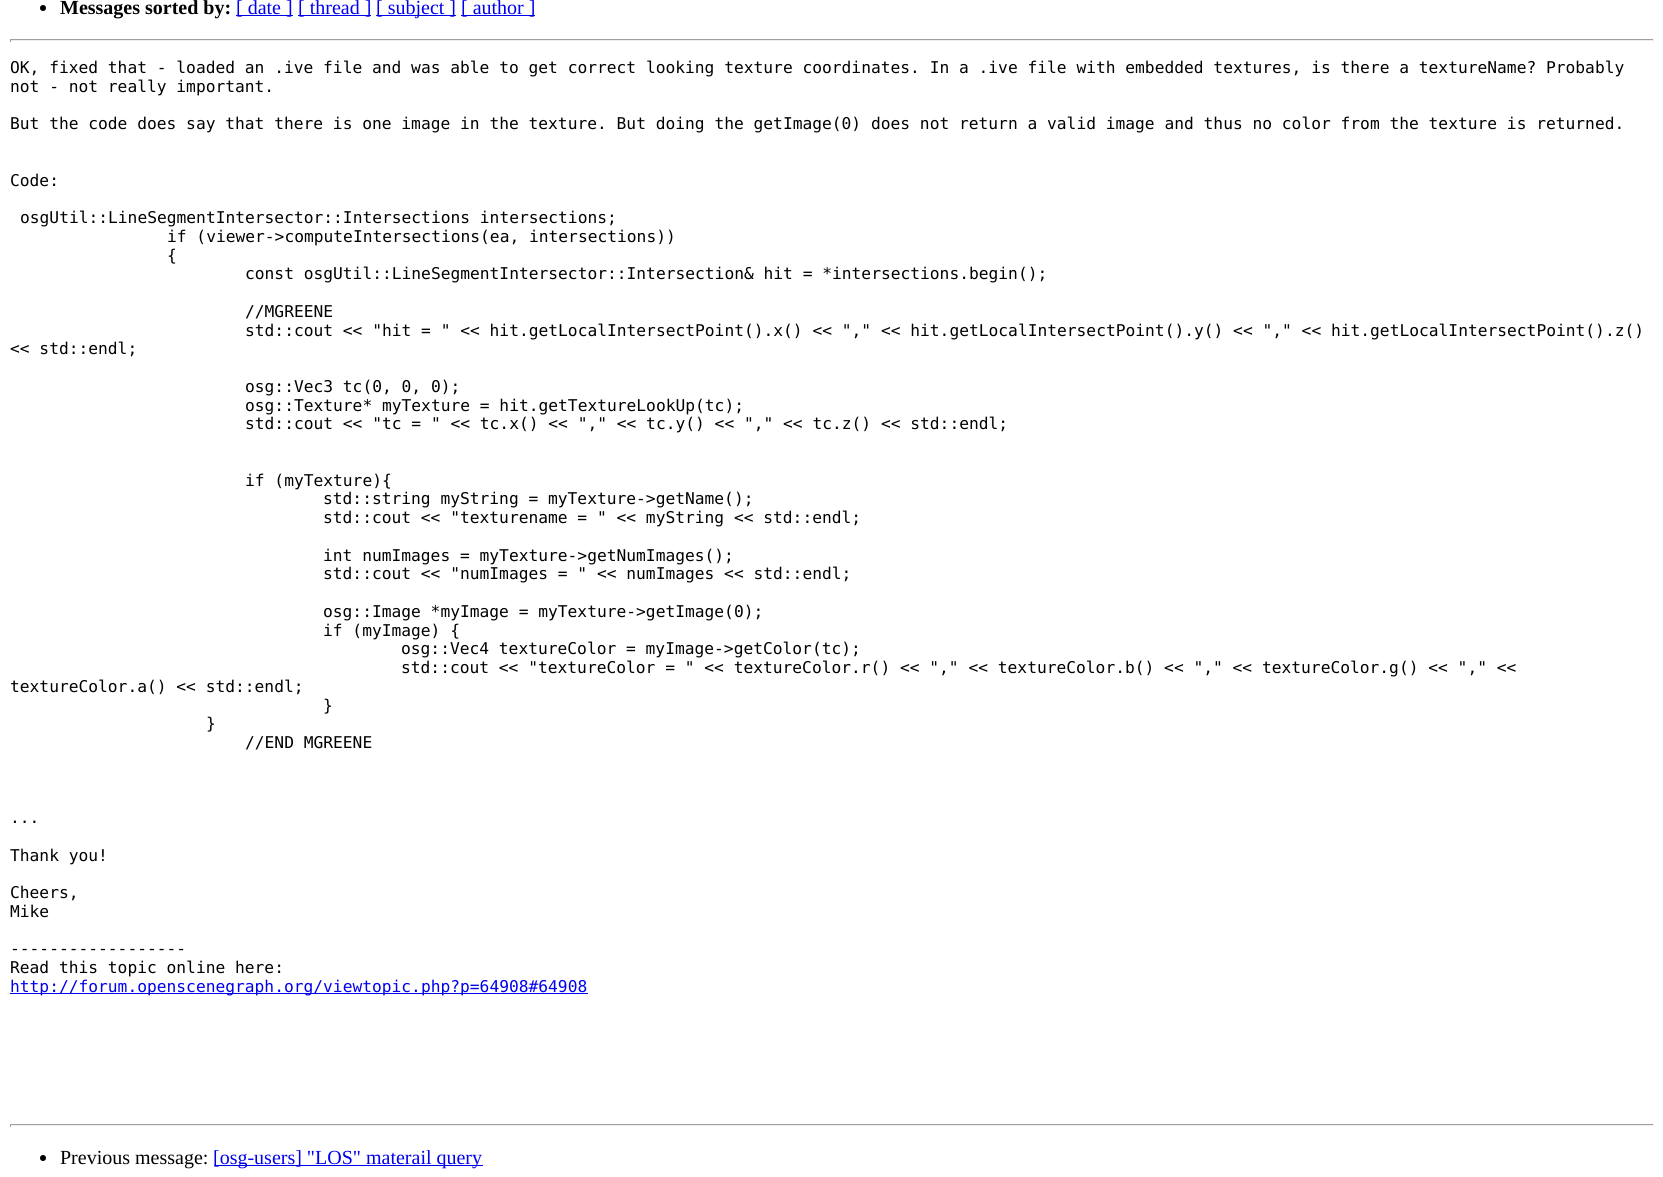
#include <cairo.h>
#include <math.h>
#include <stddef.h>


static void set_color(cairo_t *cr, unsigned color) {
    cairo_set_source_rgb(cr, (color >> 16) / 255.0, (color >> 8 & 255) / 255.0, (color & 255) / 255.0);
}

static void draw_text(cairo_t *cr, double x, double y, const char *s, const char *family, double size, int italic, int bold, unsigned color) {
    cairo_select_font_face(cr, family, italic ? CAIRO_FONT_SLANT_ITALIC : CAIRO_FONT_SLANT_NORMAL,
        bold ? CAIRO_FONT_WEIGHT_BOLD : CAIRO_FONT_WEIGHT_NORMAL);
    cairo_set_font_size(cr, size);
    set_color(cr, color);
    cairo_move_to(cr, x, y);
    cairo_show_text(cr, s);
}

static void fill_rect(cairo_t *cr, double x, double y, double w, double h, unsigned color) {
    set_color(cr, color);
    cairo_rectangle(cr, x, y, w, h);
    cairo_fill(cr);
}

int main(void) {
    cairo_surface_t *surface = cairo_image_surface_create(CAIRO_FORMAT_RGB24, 1663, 1177);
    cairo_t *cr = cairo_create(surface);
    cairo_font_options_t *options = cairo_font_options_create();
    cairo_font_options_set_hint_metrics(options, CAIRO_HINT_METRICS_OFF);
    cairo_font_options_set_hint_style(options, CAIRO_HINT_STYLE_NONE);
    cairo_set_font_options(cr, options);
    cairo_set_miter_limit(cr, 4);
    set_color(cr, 0xFFFFFF);
    cairo_paint(cr);
    set_color(cr, 0x000000);
    cairo_arc(cr, 43, 8, 3, 0, 2 * M_PI);
    cairo_fill(cr);
    draw_text(cr, 60, 14, "Messages sorted by:", "Liberation Serif", 20, 0, 1, 0x000000);
    fill_rect(cr, 236, 15, 57, 1, 0x0000EE);
    draw_text(cr, 236, 14, "[ date ]", "Liberation Serif", 20, 0, 0, 0x0000EE);
    fill_rect(cr, 298, 15, 73, 1, 0x0000EE);
    draw_text(cr, 298, 14, "[ thread ]", "Liberation Serif", 20, 0, 0, 0x0000EE);
    fill_rect(cr, 376, 15, 80, 1, 0x0000EE);
    draw_text(cr, 376, 14, "[ subject ]", "Liberation Serif", 20, 0, 0, 0x0000EE);
    fill_rect(cr, 461, 15, 74, 1, 0x0000EE);
    draw_text(cr, 461, 14, "[ author ]", "Liberation Serif", 20, 0, 0, 0x0000EE);
    fill_rect(cr, 10, 39, 1644, 1, 0x9F9F9F);
    fill_rect(cr, 1653, 39, 1, 3, 0xEEEEEE);
    fill_rect(cr, 10, 40, 1644, 1, 0xEEEEEE);
    fill_rect(cr, 10, 39, 1, 3, 0x9F9F9F);
    draw_text(cr, 10, 73, "OK, fixed that - loaded an .ive file and was able to get correct looking texture coordinates. In a .ive file with embedded textures, is there a textureName? Probably", "DejaVu Sans Mono", 16.25, 0, 0, 0x000000);
    draw_text(cr, 10, 92, "not - not really important.", "DejaVu Sans Mono", 16.25, 0, 0, 0x000000);
    draw_text(cr, 10, 129, "But the code does say that there is one image in the texture. But doing the getImage(0) does not return a valid image and thus no color from the texture is returned.", "DejaVu Sans Mono", 16.25, 0, 0, 0x000000);
    draw_text(cr, 10, 186, "Code:", "DejaVu Sans Mono", 16.25, 0, 0, 0x000000);
    draw_text(cr, 20, 223, "osgUtil::LineSegmentIntersector::Intersections intersections;", "DejaVu Sans Mono", 16.25, 0, 0, 0x000000);
    draw_text(cr, 167, 242, "if (viewer->computeIntersections(ea, intersections))", "DejaVu Sans Mono", 16.25, 0, 0, 0x000000);
    draw_text(cr, 167, 261, "{", "DejaVu Sans Mono", 16.25, 0, 0, 0x000000);
    draw_text(cr, 245, 279, "const osgUtil::LineSegmentIntersector::Intersection& hit = *intersections.begin();", "DejaVu Sans Mono", 16.25, 0, 0, 0x000000);
    draw_text(cr, 245, 317, "//MGREENE", "DejaVu Sans Mono", 16.25, 0, 0, 0x000000);
    draw_text(cr, 245, 336, "std::cout << \"hit = \" << hit.getLocalIntersectPoint().x() << \",\" << hit.getLocalIntersectPoint().y() << \",\" << hit.getLocalIntersectPoint().z()", "DejaVu Sans Mono", 16.25, 0, 0, 0x000000);
    draw_text(cr, 10, 354, "<< std::endl;", "DejaVu Sans Mono", 16.25, 0, 0, 0x000000);
    draw_text(cr, 245, 392, "osg::Vec3 tc(0, 0, 0);", "DejaVu Sans Mono", 16.25, 0, 0, 0x000000);
    draw_text(cr, 245, 411, "osg::Texture* myTexture = hit.getTextureLookUp(tc);", "DejaVu Sans Mono", 16.25, 0, 0, 0x000000);
    draw_text(cr, 245, 429, "std::cout << \"tc = \" << tc.x() << \",\" << tc.y() << \",\" << tc.z() << std::endl;", "DejaVu Sans Mono", 16.25, 0, 0, 0x000000);
    draw_text(cr, 245, 486, "if (myTexture){", "DejaVu Sans Mono", 16.25, 0, 0, 0x000000);
    draw_text(cr, 323, 504, "std::string myString = myTexture->getName();", "DejaVu Sans Mono", 16.25, 0, 0, 0x000000);
    draw_text(cr, 323, 523, "std::cout << \"texturename = \" << myString << std::endl;", "DejaVu Sans Mono", 16.25, 0, 0, 0x000000);
    draw_text(cr, 323, 561, "int numImages = myTexture->getNumImages();", "DejaVu Sans Mono", 16.25, 0, 0, 0x000000);
    draw_text(cr, 323, 579, "std::cout << \"numImages = \" << numImages << std::endl;", "DejaVu Sans Mono", 16.25, 0, 0, 0x000000);
    draw_text(cr, 323, 617, "osg::Image *myImage = myTexture->getImage(0);", "DejaVu Sans Mono", 16.25, 0, 0, 0x000000);
    draw_text(cr, 323, 636, "if (myImage) {", "DejaVu Sans Mono", 16.25, 0, 0, 0x000000);
    draw_text(cr, 401, 654, "osg::Vec4 textureColor = myImage->getColor(tc);", "DejaVu Sans Mono", 16.25, 0, 0, 0x000000);
    draw_text(cr, 401, 673, "std::cout << \"textureColor = \" << textureColor.r() << \",\" << textureColor.b() << \",\" << textureColor.g() << \",\" <<", "DejaVu Sans Mono", 16.25, 0, 0, 0x000000);
    draw_text(cr, 10, 692, "textureColor.a() << std::endl;", "DejaVu Sans Mono", 16.25, 0, 0, 0x000000);
    draw_text(cr, 323, 711, "}", "DejaVu Sans Mono", 16.25, 0, 0, 0x000000);
    draw_text(cr, 206, 729, "}", "DejaVu Sans Mono", 16.25, 0, 0, 0x000000);
    draw_text(cr, 245, 748, "//END MGREENE", "DejaVu Sans Mono", 16.25, 0, 0, 0x000000);
    draw_text(cr, 10, 823, "...", "DejaVu Sans Mono", 16.25, 0, 0, 0x000000);
    draw_text(cr, 10, 861, "Thank you!", "DejaVu Sans Mono", 16.25, 0, 0, 0x000000);
    draw_text(cr, 10, 898, "Cheers,", "DejaVu Sans Mono", 16.25, 0, 0, 0x000000);
    draw_text(cr, 10, 917, "Mike", "DejaVu Sans Mono", 16.25, 0, 0, 0x000000);
    draw_text(cr, 10, 954, "------------------", "DejaVu Sans Mono", 16.25, 0, 0, 0x000000);
    draw_text(cr, 10, 973, "Read this topic online here:", "DejaVu Sans Mono", 16.25, 0, 0, 0x000000);
    fill_rect(cr, 10, 993, 578, 1, 0x0000EE);
    draw_text(cr, 10, 992, "http://forum.openscenegraph.org/viewtopic.php?p=64908#64908", "DejaVu Sans Mono", 16.25, 0, 0, 0x0000EE);
    fill_rect(cr, 10, 1124, 1644, 1, 0x9F9F9F);
    fill_rect(cr, 1653, 1124, 1, 3, 0xEEEEEE);
    fill_rect(cr, 10, 1125, 1644, 1, 0xEEEEEE);
    fill_rect(cr, 10, 1124, 1, 3, 0x9F9F9F);
    set_color(cr, 0x000000);
    cairo_new_path(cr);
    cairo_arc(cr, 43, 1158, 3, 0, 2 * M_PI);
    cairo_fill(cr);
    draw_text(cr, 60, 1164, "Previous message:", "Liberation Serif", 20, 0, 0, 0x000000);
    fill_rect(cr, 214, 1165, 269, 1, 0x0000EE);
    draw_text(cr, 213, 1164, "[osg-users] \"LOS\" materail query", "Liberation Serif", 20, 0, 0, 0x0000EE);
    cairo_surface_write_to_png(surface, "output.png");
    cairo_font_options_destroy(options);
    cairo_destroy(cr);
    cairo_surface_destroy(surface);
    return 0;
}
